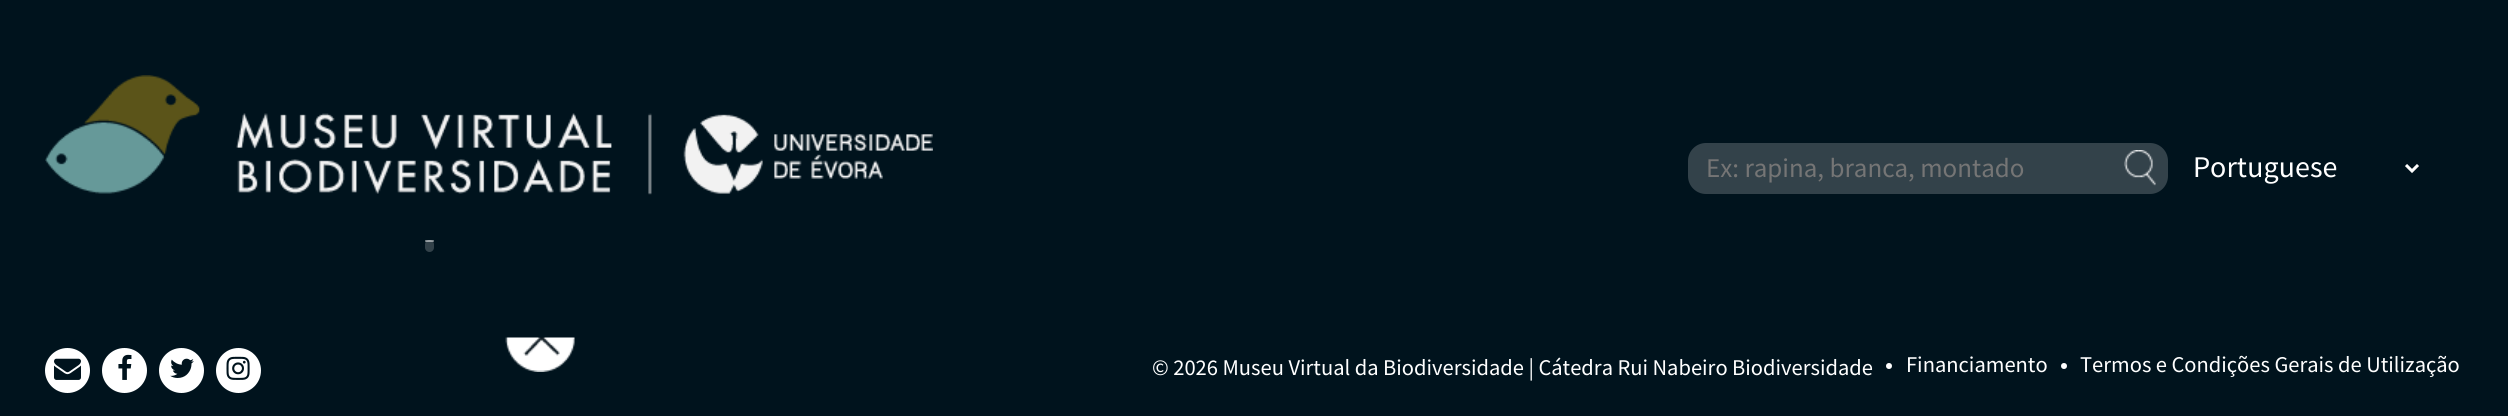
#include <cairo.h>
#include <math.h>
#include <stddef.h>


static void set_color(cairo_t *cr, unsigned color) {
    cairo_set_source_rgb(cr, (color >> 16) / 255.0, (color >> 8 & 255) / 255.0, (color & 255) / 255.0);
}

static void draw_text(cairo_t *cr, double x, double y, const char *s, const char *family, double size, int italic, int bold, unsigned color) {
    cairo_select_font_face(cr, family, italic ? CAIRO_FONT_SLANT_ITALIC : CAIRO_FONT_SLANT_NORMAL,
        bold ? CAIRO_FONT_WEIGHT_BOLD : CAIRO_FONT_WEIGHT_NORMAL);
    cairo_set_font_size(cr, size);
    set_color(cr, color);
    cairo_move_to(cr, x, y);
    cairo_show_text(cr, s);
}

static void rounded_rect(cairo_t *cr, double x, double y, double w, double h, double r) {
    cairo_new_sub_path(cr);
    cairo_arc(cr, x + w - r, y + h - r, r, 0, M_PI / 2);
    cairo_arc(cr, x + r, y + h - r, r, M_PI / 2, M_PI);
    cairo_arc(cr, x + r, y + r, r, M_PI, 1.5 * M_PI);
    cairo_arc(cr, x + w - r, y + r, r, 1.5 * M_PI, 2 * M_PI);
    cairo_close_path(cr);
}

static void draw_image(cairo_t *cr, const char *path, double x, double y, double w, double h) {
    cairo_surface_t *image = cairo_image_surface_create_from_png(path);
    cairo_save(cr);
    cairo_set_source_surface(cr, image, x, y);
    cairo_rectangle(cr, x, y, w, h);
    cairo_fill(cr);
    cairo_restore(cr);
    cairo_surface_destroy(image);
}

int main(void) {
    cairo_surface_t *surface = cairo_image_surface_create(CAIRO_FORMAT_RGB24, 2508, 416);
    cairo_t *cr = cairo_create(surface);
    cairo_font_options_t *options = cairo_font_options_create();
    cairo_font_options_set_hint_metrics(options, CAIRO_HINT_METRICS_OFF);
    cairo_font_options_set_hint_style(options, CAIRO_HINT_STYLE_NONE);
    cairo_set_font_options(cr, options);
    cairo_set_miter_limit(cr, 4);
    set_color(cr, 0x00131D);
    cairo_paint(cr);
    draw_image(cr, "assets/img1.png", 45, 75, 888, 120);
    set_color(cr, 0x33424A);
    rounded_rect(cr, 425, 240, 9, 12, 4.5);
    cairo_fill(cr);
    cairo_set_source_rgba(cr, 1, 1, 1, 0.5);
    rounded_rect(cr, 425, 240, 9, 2, 1);
    cairo_fill(cr);
    set_color(cr, 0xFFFFFF);
    cairo_arc(cr, 67.5, 370.5, 22.5, 0, 2 * M_PI);
    cairo_fill(cr);
    draw_image(cr, "assets/img2.png", 54, 358, 27, 22);
    cairo_arc(cr, 124.5, 370.5, 22.5, 0, 2 * M_PI);
    cairo_fill(cr);
    draw_image(cr, "assets/img3.png", 118, 354, 14, 26);
    cairo_arc(cr, 181.5, 370.5, 22.5, 0, 2 * M_PI);
    cairo_fill(cr);
    draw_image(cr, "assets/img4.png", 170, 358, 24, 20);
    cairo_arc(cr, 238.5, 370.5, 22.5, 0, 2 * M_PI);
    cairo_fill(cr);
    draw_image(cr, "assets/img5.png", 226, 356, 24, 24);
    set_color(cr, 0x33424A);
    rounded_rect(cr, 1688, 143, 480, 51, 18);
    cairo_fill(cr);
    draw_text(cr, 1706, 177, "Ex: rapina, branca, montado", "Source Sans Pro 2", 27, 0, 0, 0x757575);
    draw_image(cr, "assets/img6.png", 2124, 150, 32, 36);
    cairo_new_path(cr);
    cairo_move_to(cr, 2406, 165);
    cairo_line_to(cr, 2412, 171);
    cairo_line_to(cr, 2418, 165);
    set_color(cr, 0xFFFFFF);
    cairo_set_line_width(cr, 3);
    cairo_stroke(cr);
    draw_text(cr, 2193, 177, "Portuguese", "Source Sans Pro", 30, 0, 0, 0xFFFFFF);
    draw_image(cr, "assets/img7.png", 505, 337, 70, 35);
    draw_text(cr, 1152, 375, "© 2026 Museu Virtual da Biodiversidade | Cátedra Rui Nabeiro Biodiversidade", "Source Sans Pro 2", 22.5, 0, 0, 0xFFFFFF);
    cairo_new_path(cr);
    cairo_arc(cr, 1889, 366, 3, 0, 2 * M_PI);
    cairo_fill(cr);
    draw_text(cr, 1906, 372, "Financiamento", "Source Sans Pro 2", 22.5, 0, 0, 0xFFFFFF);
    cairo_new_path(cr);
    cairo_arc(cr, 2064, 366, 3, 0, 2 * M_PI);
    cairo_fill(cr);
    draw_text(cr, 2080, 372, "Termos e Condições Gerais de Utilização", "Source Sans Pro 2", 22.5, 0, 0, 0xFFFFFF);
    cairo_surface_write_to_png(surface, "output.png");
    cairo_font_options_destroy(options);
    cairo_destroy(cr);
    cairo_surface_destroy(surface);
    return 0;
}
